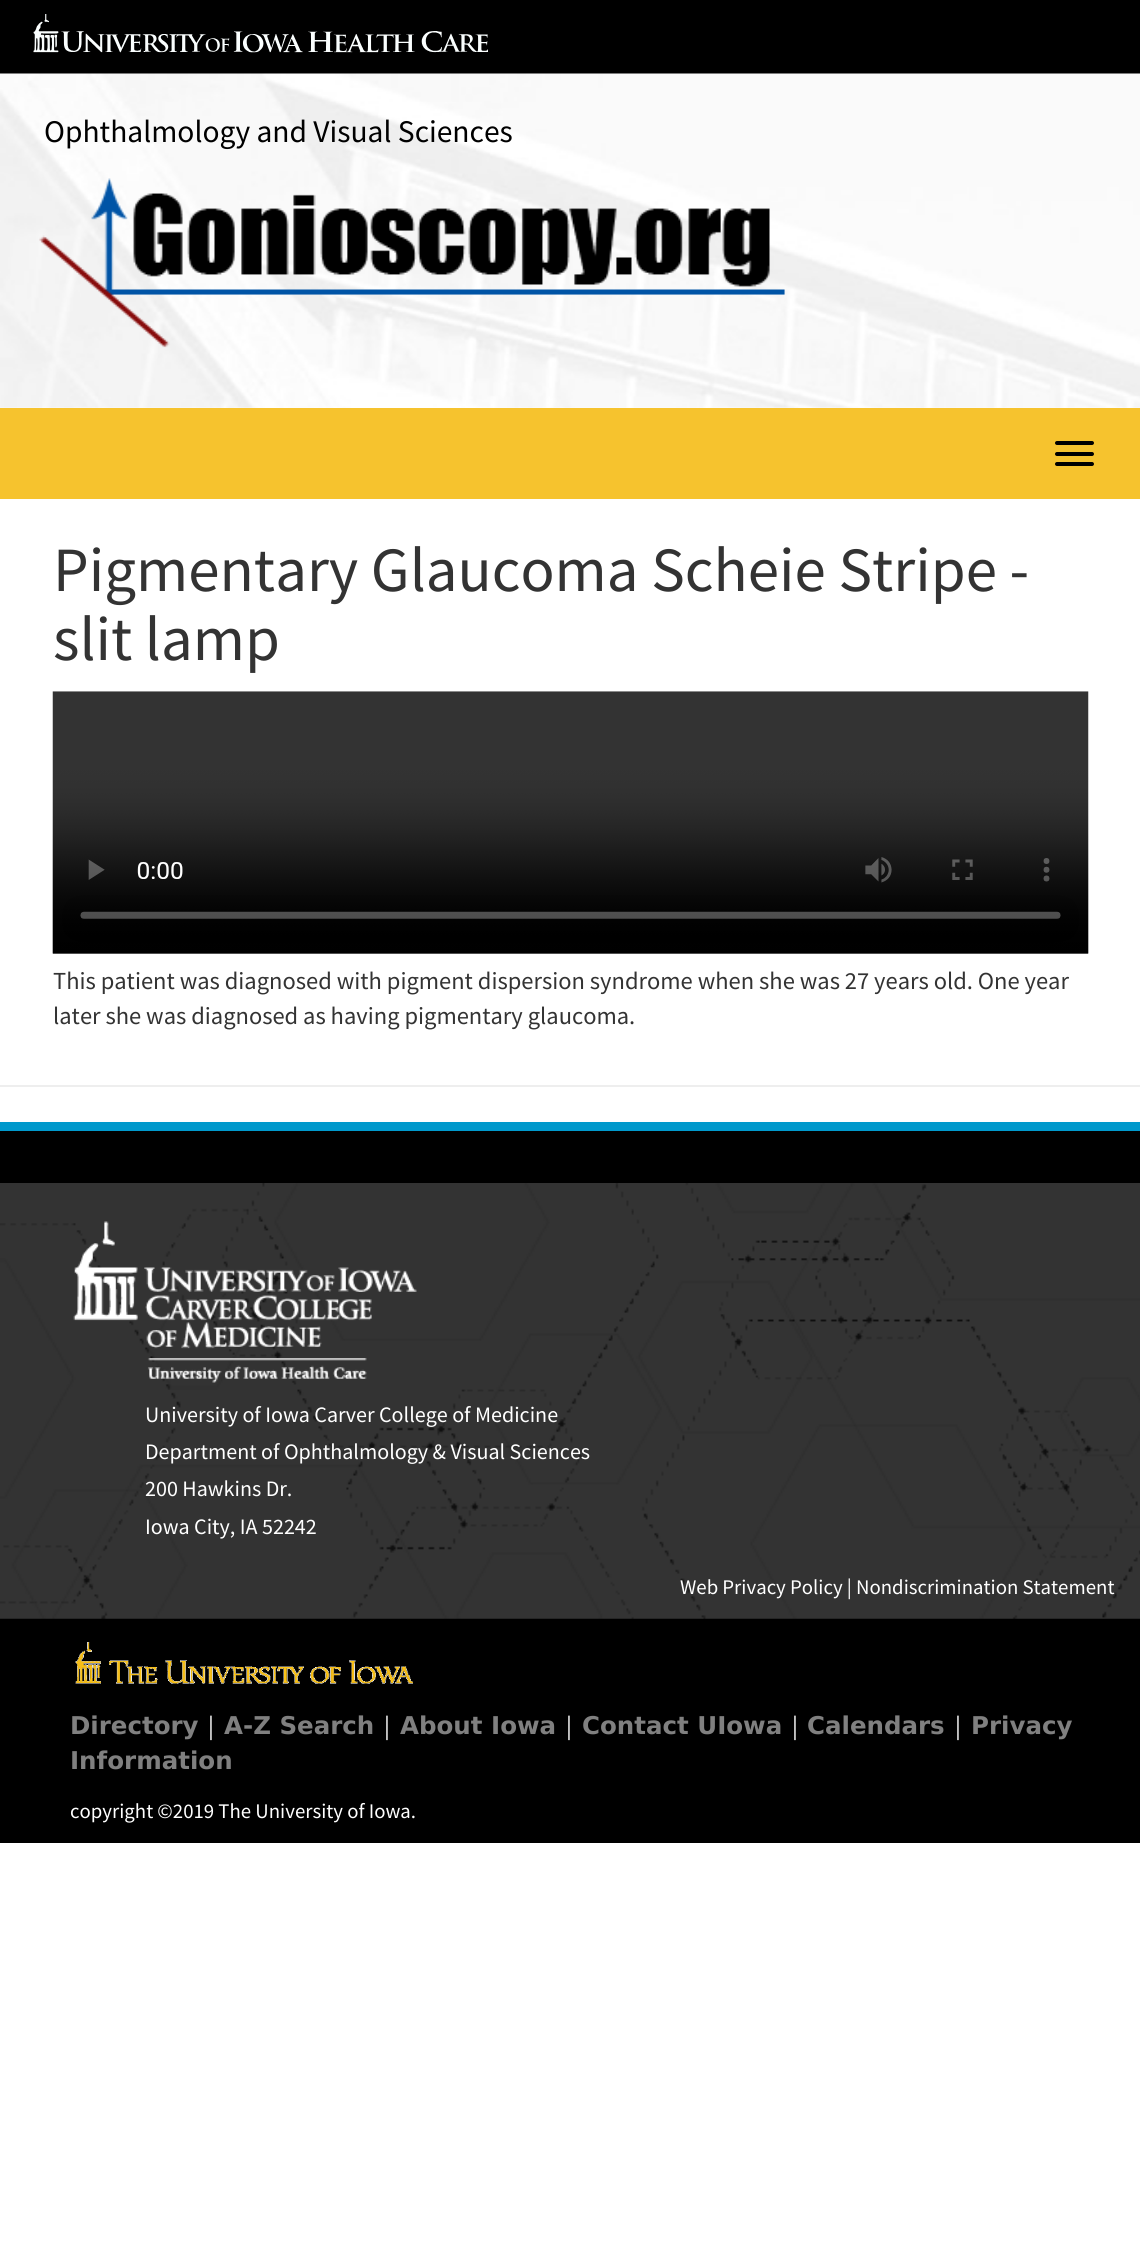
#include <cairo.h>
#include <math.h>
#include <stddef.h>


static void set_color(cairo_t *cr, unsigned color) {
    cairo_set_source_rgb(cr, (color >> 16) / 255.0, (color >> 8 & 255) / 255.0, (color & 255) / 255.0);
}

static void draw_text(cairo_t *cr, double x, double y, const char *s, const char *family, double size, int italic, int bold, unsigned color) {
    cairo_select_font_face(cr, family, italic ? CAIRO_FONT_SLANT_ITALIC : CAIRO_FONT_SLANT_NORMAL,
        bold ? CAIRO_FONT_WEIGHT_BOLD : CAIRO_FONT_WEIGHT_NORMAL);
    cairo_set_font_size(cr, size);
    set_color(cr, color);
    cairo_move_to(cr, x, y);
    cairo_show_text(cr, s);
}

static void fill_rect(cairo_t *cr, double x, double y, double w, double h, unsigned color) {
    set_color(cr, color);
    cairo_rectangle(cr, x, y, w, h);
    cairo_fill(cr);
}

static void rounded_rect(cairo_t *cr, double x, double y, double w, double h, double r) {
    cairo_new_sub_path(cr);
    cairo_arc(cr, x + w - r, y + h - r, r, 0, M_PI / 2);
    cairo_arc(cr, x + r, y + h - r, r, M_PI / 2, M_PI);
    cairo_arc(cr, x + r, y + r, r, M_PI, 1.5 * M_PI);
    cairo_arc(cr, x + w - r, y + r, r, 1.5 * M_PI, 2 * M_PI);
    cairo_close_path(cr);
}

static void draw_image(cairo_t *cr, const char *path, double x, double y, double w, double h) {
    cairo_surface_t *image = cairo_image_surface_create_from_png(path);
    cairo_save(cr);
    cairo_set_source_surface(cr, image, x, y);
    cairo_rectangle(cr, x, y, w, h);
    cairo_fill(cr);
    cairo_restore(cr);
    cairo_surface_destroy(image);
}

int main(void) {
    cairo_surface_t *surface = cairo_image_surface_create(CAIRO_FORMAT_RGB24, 1140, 2250);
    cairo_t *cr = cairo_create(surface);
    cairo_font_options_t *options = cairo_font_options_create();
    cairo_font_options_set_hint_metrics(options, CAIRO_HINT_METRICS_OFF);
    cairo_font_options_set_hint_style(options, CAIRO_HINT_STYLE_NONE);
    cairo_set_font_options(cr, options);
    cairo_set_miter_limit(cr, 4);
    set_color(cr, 0xFFFFFF);
    cairo_paint(cr);
    fill_rect(cr, 0, 0, 1140, 74, 0x000000);
    draw_image(cr, "assets/img1.png", 33, 14, 455, 39);
    draw_image(cr, "assets/img2.png", 0, 73, 1140, 335);
    draw_text(cr, 44, 142, "Ophthalmology and Visual Sciences", "Source Sans Pro", 31.5, 0, 0, 0x000000);
    draw_image(cr, "assets/img3.png", 39, 178, 746, 170);
    fill_rect(cr, 0, 408, 1140, 91, 0xF6C32E);
    set_color(cr, 0x000000);
    rounded_rect(cr, 1055, 441, 39, 4, 2);
    cairo_fill(cr);
    rounded_rect(cr, 1055, 452, 39, 4, 2);
    cairo_fill(cr);
    rounded_rect(cr, 1055, 462, 39, 4, 2);
    cairo_fill(cr);
    draw_text(cr, 53, 591, "Pigmentary Glaucoma Scheie Stripe -", "Source Sans Pro", 63, 0, 0, 0x333333);
    draw_text(cr, 53, 660, "slit lamp", "Source Sans Pro", 63, 0, 0, 0x333333);
    draw_image(cr, "assets/img4.png", 52, 691, 1037, 263);
    draw_text(cr, 53, 989, "This patient was diagnosed with pigment dispersion syndrome when she was 27 years old. One year", "Source Sans Pro", 24.5, 0, 0, 0x333333);
    draw_text(cr, 53, 1024, "later she was diagnosed as having pigmentary glaucoma.", "Source Sans Pro", 24.5, 0, 0, 0x333333);
    fill_rect(cr, 0, 1085, 1140, 2, 0xEEEEEE);
    fill_rect(cr, 0, 1131, 1140, 712, 0x000000);
    fill_rect(cr, 0, 1122, 1140, 9, 0x0099CC);
    draw_image(cr, "assets/img5.png", 0, 1183, 1140, 436);
    draw_image(cr, "assets/img6.png", 73, 1221, 344, 162);
    draw_text(cr, 145, 1422, "University of Iowa Carver College of Medicine", "Source Sans Pro", 22.05, 0, 0, 0xFFFFFF);
    draw_text(cr, 145, 1459, "Department of Ophthalmology & Visual Sciences", "Source Sans Pro", 22.05, 0, 0, 0xFFFFFF);
    draw_text(cr, 145, 1496, "200 Hawkins Dr.", "Source Sans Pro", 22.05, 0, 0, 0xFFFFFF);
    draw_text(cr, 145, 1534, "Iowa City, IA 52242", "Source Sans Pro", 22.05, 0, 0, 0xFFFFFF);
    draw_text(cr, 680, 1594, "Web Privacy Policy | Nondiscrimination Statement", "Source Sans Pro", 20.8, 0, 0, 0xFFFFFF);
    draw_image(cr, "assets/img7.png", 75, 1642, 338, 42);
    draw_text(cr, 70, 1734, "Directory", "DejaVu Sans", 24.5, 0, 1, 0x808080);
    draw_text(cr, 208, 1734, "|", "Source Sans Pro", 24.5, 0, 0, 0xFFFFFF);
    draw_text(cr, 224, 1734, "A-Z Search", "DejaVu Sans", 24.5, 0, 1, 0x808080);
    draw_text(cr, 384, 1734, "|", "Source Sans Pro", 24.5, 0, 0, 0xFFFFFF);
    draw_text(cr, 400, 1734, "About Iowa", "DejaVu Sans", 24.5, 0, 1, 0x808080);
    draw_text(cr, 566, 1734, "|", "Source Sans Pro", 24.5, 0, 0, 0xFFFFFF);
    draw_text(cr, 582, 1734, "Contact UIowa", "DejaVu Sans", 24.5, 0, 1, 0x808080);
    draw_text(cr, 792, 1734, "|", "Source Sans Pro", 24.5, 0, 0, 0xFFFFFF);
    draw_text(cr, 807, 1734, "Calendars", "DejaVu Sans", 24.5, 0, 1, 0x808080);
    draw_text(cr, 955, 1734, "|", "Source Sans Pro", 24.5, 0, 0, 0xFFFFFF);
    draw_text(cr, 971, 1734, "Privacy", "DejaVu Sans", 24.5, 0, 1, 0x808080);
    draw_text(cr, 70, 1769, "Information", "DejaVu Sans", 24.5, 0, 1, 0x808080);
    draw_text(cr, 70, 1818, "copyright ©2019 The University of Iowa.", "Source Sans Pro", 20.8, 0, 0, 0xFFFFFF);
    cairo_surface_write_to_png(surface, "output.png");
    cairo_font_options_destroy(options);
    cairo_destroy(cr);
    cairo_surface_destroy(surface);
    return 0;
}
